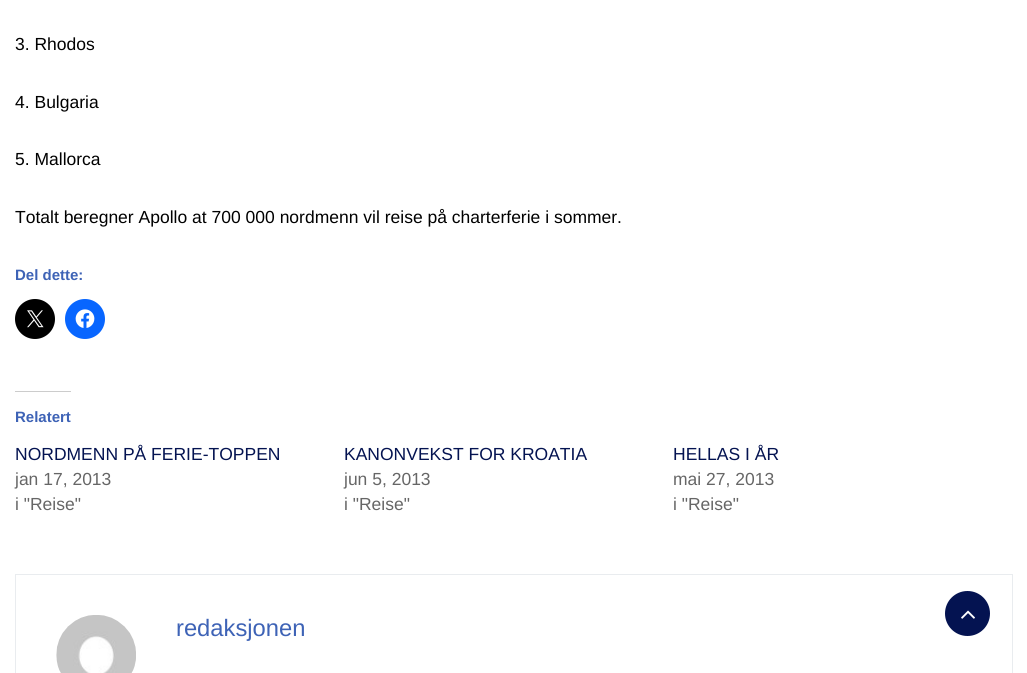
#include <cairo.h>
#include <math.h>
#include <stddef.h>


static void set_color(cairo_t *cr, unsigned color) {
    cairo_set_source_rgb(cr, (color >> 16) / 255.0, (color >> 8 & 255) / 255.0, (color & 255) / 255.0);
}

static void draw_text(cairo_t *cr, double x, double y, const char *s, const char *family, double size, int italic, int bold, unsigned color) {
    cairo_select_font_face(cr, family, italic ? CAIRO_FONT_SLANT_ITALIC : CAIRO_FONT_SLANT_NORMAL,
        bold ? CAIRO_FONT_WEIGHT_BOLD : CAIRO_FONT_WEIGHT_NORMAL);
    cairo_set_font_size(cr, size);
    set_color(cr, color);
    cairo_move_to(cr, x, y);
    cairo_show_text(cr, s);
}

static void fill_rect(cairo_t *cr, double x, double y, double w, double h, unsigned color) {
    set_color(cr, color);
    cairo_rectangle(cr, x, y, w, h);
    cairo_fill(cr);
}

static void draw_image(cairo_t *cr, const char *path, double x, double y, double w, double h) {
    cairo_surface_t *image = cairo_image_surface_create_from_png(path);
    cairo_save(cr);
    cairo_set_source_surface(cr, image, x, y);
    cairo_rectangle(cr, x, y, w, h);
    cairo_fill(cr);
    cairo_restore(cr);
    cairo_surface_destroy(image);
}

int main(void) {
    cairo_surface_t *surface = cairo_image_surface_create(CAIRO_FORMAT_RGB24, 1027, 673);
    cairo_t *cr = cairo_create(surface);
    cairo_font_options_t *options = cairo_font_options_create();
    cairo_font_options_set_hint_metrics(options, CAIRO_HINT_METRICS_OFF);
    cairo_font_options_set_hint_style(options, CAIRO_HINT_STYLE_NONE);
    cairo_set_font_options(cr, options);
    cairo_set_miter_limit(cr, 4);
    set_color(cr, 0xFFFFFF);
    cairo_paint(cr);
    draw_text(cr, 15, 50, "3. Rhodos", "Liberation Sans", 17.5, 0, 0, 0x000000);
    draw_text(cr, 15, 108, "4. Bulgaria", "Liberation Sans", 17.5, 0, 0, 0x000000);
    draw_text(cr, 15, 165, "5. Mallorca", "Liberation Sans", 17.5, 0, 0, 0x000000);
    draw_text(cr, 15, 223, "Totalt beregner Apollo at 700 000 nordmenn vil reise på charterferie i sommer.", "Liberation Sans", 17.5, 0, 0, 0x000000);
    draw_text(cr, 15, 280, "Del dette:", "Liberation Sans", 15, 0, 1, 0x3E63B6);
    set_color(cr, 0x000000);
    cairo_new_path(cr);
    cairo_arc(cr, 35, 319, 20, 0, 2 * M_PI);
    cairo_fill(cr);
    draw_image(cr, "assets/img1.png", 27, 310, 17, 18);
    set_color(cr, 0x0866FF);
    cairo_arc(cr, 85, 319, 20, 0, 2 * M_PI);
    cairo_fill(cr);
    draw_image(cr, "assets/img2.png", 75, 309, 20, 19);
    fill_rect(cr, 15, 391, 56, 1, 0xCCCCCC);
    draw_text(cr, 15, 422, "Relatert", "Liberation Sans", 15, 0, 1, 0x3E63B6);
    draw_text(cr, 15, 460, "NORDMENN PÅ FERIE-TOPPEN", "Liberation Sans", 17.5, 0, 0, 0x041351);
    draw_text(cr, 15, 485, "jan 17, 2013", "Liberation Sans", 17.5, 0, 0, 0x666666);
    draw_text(cr, 15, 510, "i \"Reise\"", "Liberation Sans", 17.5, 0, 0, 0x666666);
    draw_text(cr, 344, 460, "KANONVEKST FOR KROATIA", "Liberation Sans", 17.5, 0, 0, 0x041351);
    draw_text(cr, 344, 485, "jun 5, 2013", "Liberation Sans", 17.5, 0, 0, 0x666666);
    draw_text(cr, 344, 510, "i \"Reise\"", "Liberation Sans", 17.5, 0, 0, 0x666666);
    draw_text(cr, 673, 460, "HELLAS I ÅR", "Liberation Sans", 17.5, 0, 0, 0x041351);
    draw_text(cr, 673, 485, "mai 27, 2013", "Liberation Sans", 17.5, 0, 0, 0x666666);
    draw_text(cr, 673, 510, "i \"Reise\"", "Liberation Sans", 17.5, 0, 0, 0x666666);
    cairo_rectangle(cr, 15.5, 574.5, 997, 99);
    set_color(cr, 0xE9ECEF);
    cairo_set_line_width(cr, 1);
    cairo_stroke(cr);
    draw_image(cr, "assets/img3.png", 56, 615, 80, 58);
    draw_text(cr, 176, 636, "redaksjonen", "Liberation Sans", 23.75, 0, 0, 0x3E63B6);
    set_color(cr, 0x041351);
    cairo_new_path(cr);
    cairo_arc(cr, 967.5, 613.5, 22.5, 0, 2 * M_PI);
    cairo_fill(cr);
    draw_image(cr, "assets/img4.png", 961, 610, 14, 9);
    cairo_surface_write_to_png(surface, "output.png");
    cairo_font_options_destroy(options);
    cairo_destroy(cr);
    cairo_surface_destroy(surface);
    return 0;
}
